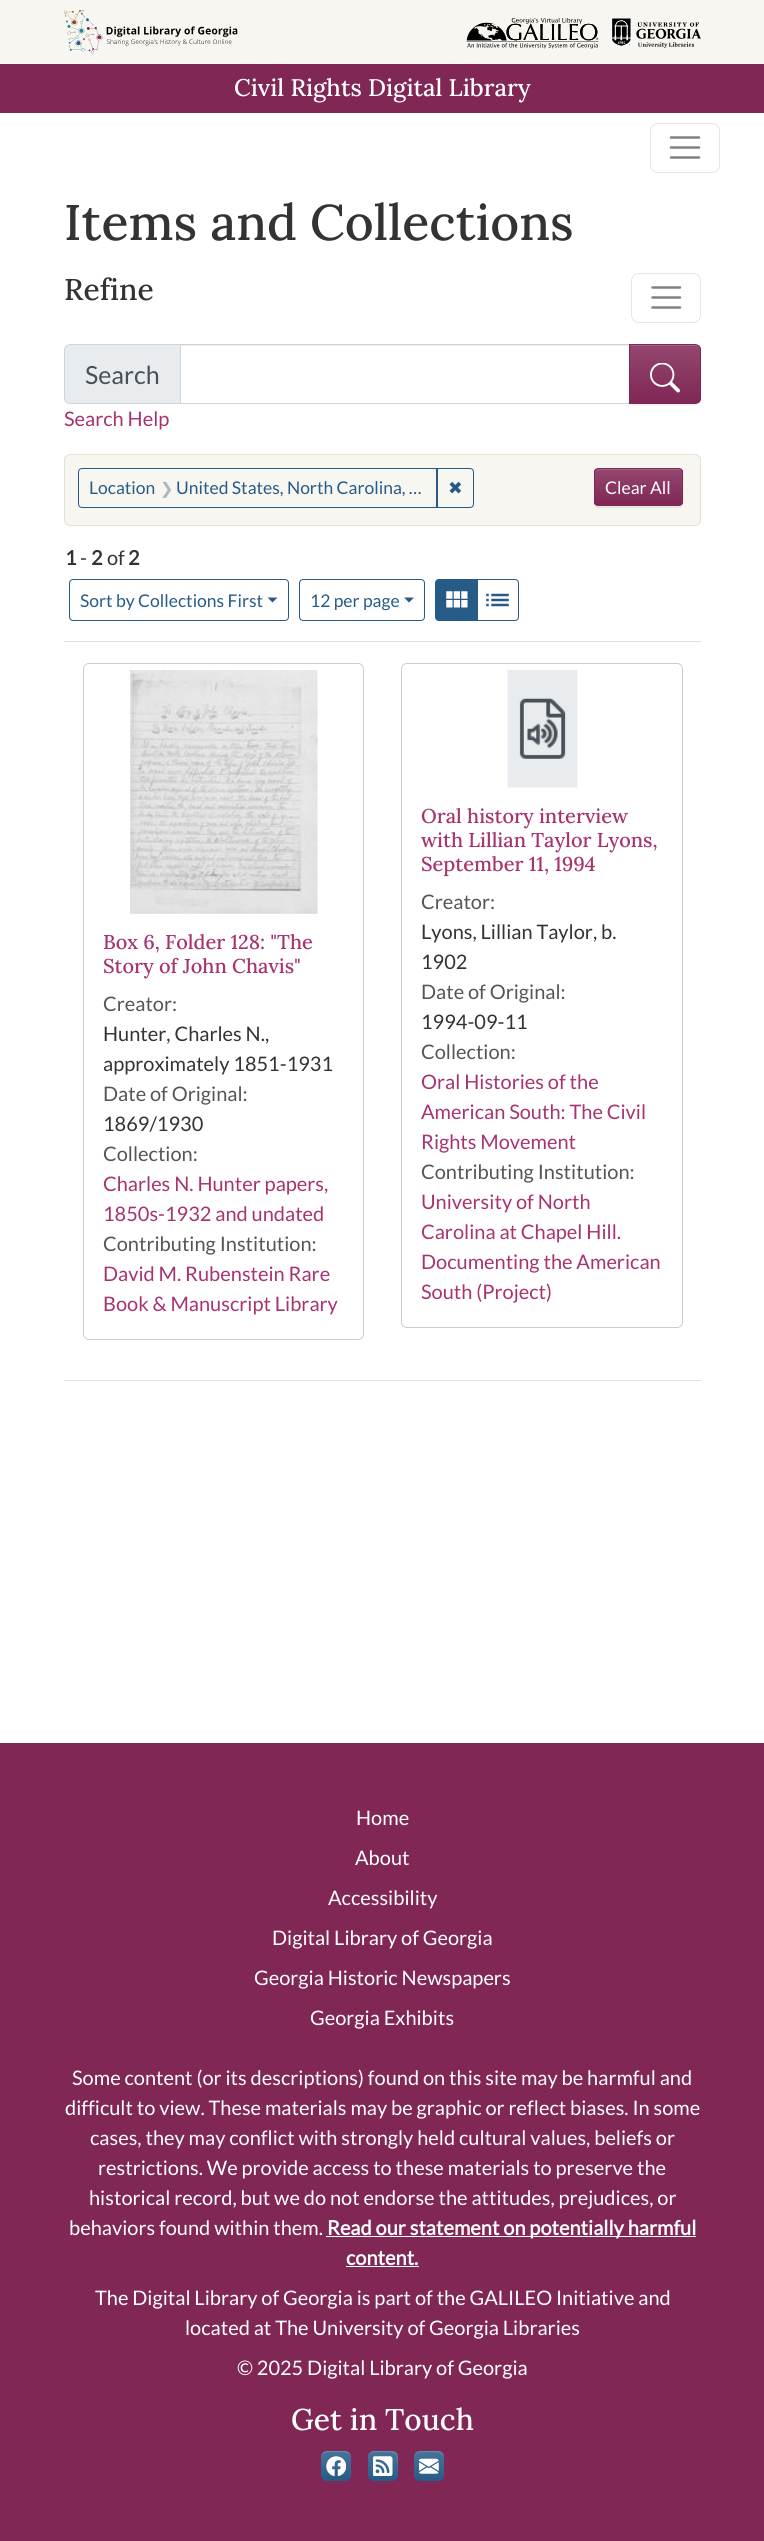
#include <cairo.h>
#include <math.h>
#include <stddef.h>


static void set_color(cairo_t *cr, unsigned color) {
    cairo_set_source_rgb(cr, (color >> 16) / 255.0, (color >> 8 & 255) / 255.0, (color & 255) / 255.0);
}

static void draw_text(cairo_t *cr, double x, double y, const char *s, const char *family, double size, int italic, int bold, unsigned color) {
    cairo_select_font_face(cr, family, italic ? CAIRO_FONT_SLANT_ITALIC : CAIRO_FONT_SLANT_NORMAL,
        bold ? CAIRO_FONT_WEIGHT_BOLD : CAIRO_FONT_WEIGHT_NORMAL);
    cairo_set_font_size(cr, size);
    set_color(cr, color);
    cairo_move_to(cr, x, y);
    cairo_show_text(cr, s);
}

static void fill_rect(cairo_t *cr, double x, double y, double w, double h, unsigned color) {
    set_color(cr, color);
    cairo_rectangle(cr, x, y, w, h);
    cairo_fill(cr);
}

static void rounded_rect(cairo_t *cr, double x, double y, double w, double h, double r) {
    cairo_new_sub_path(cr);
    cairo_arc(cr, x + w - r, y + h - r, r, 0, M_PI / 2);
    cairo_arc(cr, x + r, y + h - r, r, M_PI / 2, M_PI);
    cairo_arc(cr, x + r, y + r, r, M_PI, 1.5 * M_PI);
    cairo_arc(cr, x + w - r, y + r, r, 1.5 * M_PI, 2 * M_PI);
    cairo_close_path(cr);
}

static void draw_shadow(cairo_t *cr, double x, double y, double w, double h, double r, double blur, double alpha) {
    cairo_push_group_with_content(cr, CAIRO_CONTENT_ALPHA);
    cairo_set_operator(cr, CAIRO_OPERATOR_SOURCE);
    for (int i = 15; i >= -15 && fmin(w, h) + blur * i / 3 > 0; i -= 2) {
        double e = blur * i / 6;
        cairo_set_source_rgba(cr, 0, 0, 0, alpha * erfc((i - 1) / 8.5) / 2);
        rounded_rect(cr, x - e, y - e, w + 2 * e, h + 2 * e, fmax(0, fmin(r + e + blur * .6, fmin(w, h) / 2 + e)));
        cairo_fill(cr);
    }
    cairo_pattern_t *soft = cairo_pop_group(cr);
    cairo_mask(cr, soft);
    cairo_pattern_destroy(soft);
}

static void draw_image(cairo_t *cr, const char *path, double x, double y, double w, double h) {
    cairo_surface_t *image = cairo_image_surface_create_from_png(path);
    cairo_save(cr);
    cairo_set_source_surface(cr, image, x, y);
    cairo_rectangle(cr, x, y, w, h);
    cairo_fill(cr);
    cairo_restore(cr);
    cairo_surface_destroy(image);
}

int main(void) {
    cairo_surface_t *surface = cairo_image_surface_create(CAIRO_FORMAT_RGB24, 764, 2541);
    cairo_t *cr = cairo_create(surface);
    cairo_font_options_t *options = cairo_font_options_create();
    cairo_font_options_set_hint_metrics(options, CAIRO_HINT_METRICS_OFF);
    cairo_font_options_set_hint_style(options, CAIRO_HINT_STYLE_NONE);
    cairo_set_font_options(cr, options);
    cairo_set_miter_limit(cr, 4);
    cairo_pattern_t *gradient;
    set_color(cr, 0xFFFFFF);
    cairo_paint(cr);
    fill_rect(cr, 0, 0, 764, 64, 0xF7F6F1);
    draw_image(cr, "assets/img1.png", 64, 10, 174, 44);
    draw_image(cr, "assets/img2.png", 466, 18, 133, 31);
    draw_image(cr, "assets/img3.png", 611, 18, 90, 30);
    fill_rect(cr, 0, 64, 764, 49, 0x802755);
    draw_text(cr, 234, 96, "Civil Rights Digital Library", "Lora Medium", 24, 0, 0, 0xFFFFFF);
    rounded_rect(cr, 650.5, 123.5, 69, 49, 7.5);
    set_color(cr, 0xE6E6E6);
    cairo_set_line_width(cr, 1);
    cairo_stroke(cr);
    cairo_new_path(cr);
    cairo_move_to(cr, 671, 137.5);
    cairo_line_to(cr, 699, 137.5);
    cairo_move_to(cr, 671, 147.5);
    cairo_line_to(cr, 699, 147.5);
    cairo_move_to(cr, 671, 157.5);
    cairo_line_to(cr, 699, 157.5);
    set_color(cr, 0x808080);
    cairo_set_line_width(cr, 2.5);
    cairo_set_line_cap(cr, CAIRO_LINE_CAP_ROUND);
    cairo_stroke(cr);
    draw_text(cr, 64, 240, "Items and Collections", "Lora Medium", 50, 0, 0, 0x333333);
    draw_text(cr, 64, 300, "Refine", "Lora Medium", 30, 0, 0, 0x333333);
    rounded_rect(cr, 631.5, 273.5, 69, 49, 7.5);
    set_color(cr, 0xE6E6E6);
    cairo_set_line_width(cr, 1);
    cairo_set_line_cap(cr, CAIRO_LINE_CAP_BUTT);
    cairo_stroke(cr);
    cairo_new_path(cr);
    cairo_move_to(cr, 652.5, 287.5);
    cairo_line_to(cr, 680, 287.5);
    cairo_move_to(cr, 652.5, 297.5);
    cairo_line_to(cr, 680, 297.5);
    cairo_move_to(cr, 652.5, 307.5);
    cairo_line_to(cr, 680, 307.5);
    set_color(cr, 0x808080);
    cairo_set_line_width(cr, 2.5);
    cairo_set_line_cap(cr, CAIRO_LINE_CAP_ROUND);
    cairo_stroke(cr);
    set_color(cr, 0xE9ECEF);
    cairo_new_path(cr);
    cairo_move_to(cr, 70, 344.5);
    cairo_line_to(cr, 180.5, 344.5);
    cairo_line_to(cr, 180.5, 403.5);
    cairo_line_to(cr, 70, 403.5);
    cairo_curve_to(cr, 67, 403.5, 64.5, 401, 64.5, 398);
    cairo_line_to(cr, 64.5, 350);
    cairo_curve_to(cr, 64.5, 347, 67, 344.5, 70, 344.5);
    cairo_close_path(cr);
    cairo_fill_preserve(cr);
    set_color(cr, 0xCED4DA);
    cairo_set_line_width(cr, 1);
    cairo_set_line_cap(cr, CAIRO_LINE_CAP_BUTT);
    cairo_stroke(cr);
    draw_text(cr, 85, 384, "Search", "Lato", 25, 0, 0, 0x495057);
    fill_rect(cr, 181, 345, 448, 1, 0xECECEC);
    cairo_rectangle(cr, 180.5, 344.5, 449, 59);
    set_color(cr, 0xCED4DA);
    cairo_stroke(cr);
    set_color(cr, 0x000000);
    draw_shadow(cr, 629, 345, 72, 60, 6, 0.5, 0.07);
    cairo_save(cr);
    cairo_new_path(cr);
    cairo_move_to(cr, 629, 344);
    cairo_line_to(cr, 695, 344);
    cairo_curve_to(cr, 698.5, 344, 701, 346.5, 701, 350);
    cairo_line_to(cr, 701, 398);
    cairo_curve_to(cr, 701, 401.5, 698.5, 404, 695, 404);
    cairo_line_to(cr, 629, 404);
    cairo_close_path(cr);
    cairo_clip(cr);
    gradient = cairo_pattern_create_linear(665, 345, 665, 403);
    cairo_pattern_add_color_stop_rgba(gradient, 0, 0.576, 0.278, 0.435, 1);
    cairo_pattern_add_color_stop_rgba(gradient, 1, 0.502, 0.153, 0.333, 1);
    cairo_set_source(cr, gradient);
    cairo_pattern_destroy(gradient);
    cairo_rectangle(cr, 630, 345, 71, 58);
    cairo_fill(cr);
    cairo_restore(cr);
    set_color(cr, 0xA36385);
    cairo_new_path(cr);
    cairo_move_to(cr, 630, 346);
    cairo_line_to(cr, 695, 346);
    cairo_curve_to(cr, 698, 346, 700, 348, 700, 351);
    cairo_line_to(cr, 700, 350);
    cairo_curve_to(cr, 700, 347, 698, 345, 695, 345);
    cairo_line_to(cr, 630, 345);
    cairo_close_path(cr);
    cairo_fill(cr);
    cairo_new_path(cr);
    cairo_move_to(cr, 629.5, 344.5);
    cairo_line_to(cr, 695, 344.5);
    cairo_curve_to(cr, 698, 344.5, 700.5, 347, 700.5, 350);
    cairo_line_to(cr, 700.5, 398);
    cairo_curve_to(cr, 700.5, 401, 698, 403.5, 695, 403.5);
    cairo_line_to(cr, 629.5, 403.5);
    cairo_close_path(cr);
    set_color(cr, 0x802755);
    cairo_stroke(cr);
    draw_image(cr, "assets/img4.png", 650, 363, 30, 30);
    draw_text(cr, 64, 426, "Search Help", "Lato", 20, 0, 0, 0xA7336F);
    set_color(cr, 0xF7F6F1);
    rounded_rect(cr, 64.5, 454.5, 636, 71, 5.5);
    cairo_fill_preserve(cr);
    set_color(cr, 0xE4E1D1);
    cairo_stroke(cr);
    cairo_new_path(cr);
    cairo_move_to(cr, 82, 468.5);
    cairo_line_to(cr, 437.5, 468.5);
    cairo_line_to(cr, 437.5, 507.5);
    cairo_line_to(cr, 82, 507.5);
    cairo_curve_to(cr, 80, 507.5, 78.5, 506, 78.5, 504);
    cairo_line_to(cr, 78.5, 472);
    cairo_curve_to(cr, 78.5, 470, 80, 468.5, 82, 468.5);
    cairo_close_path(cr);
    set_color(cr, 0x265B88);
    cairo_stroke(cr);
    draw_text(cr, 89, 494, "Location", "Lato", 17.5, 0, 0, 0x265B88);
    draw_text(cr, 160, 494, "❯", "DejaVu Sans", 16, 0, 0, 0xADB5BD);
    draw_text(cr, 176, 494, "United States, North Carolina, …", "Lato", 17.5, 0, 0, 0x265B88);
    cairo_new_path(cr);
    cairo_move_to(cr, 436.5, 468.5);
    cairo_line_to(cr, 470, 468.5);
    cairo_curve_to(cr, 472, 468.5, 473.5, 470, 473.5, 472);
    cairo_line_to(cr, 473.5, 504);
    cairo_curve_to(cr, 473.5, 506, 472, 507.5, 470, 507.5);
    cairo_line_to(cr, 436.5, 507.5);
    cairo_close_path(cr);
    cairo_stroke(cr);
    draw_text(cr, 448, 494, "✖", "DejaVu Sans", 17.5, 0, 0, 0x265B88);
    set_color(cr, 0x000000);
    draw_shadow(cr, 594, 469, 89, 39, 4, 0.5, 0.07);
    cairo_save(cr);
    rounded_rect(cr, 594, 468, 89, 38, 4);
    cairo_clip(cr);
    gradient = cairo_pattern_create_linear(638, 469, 638, 505);
    cairo_pattern_add_color_stop_rgba(gradient, 0, 0.576, 0.278, 0.435, 1);
    cairo_pattern_add_color_stop_rgba(gradient, 1, 0.502, 0.153, 0.333, 1);
    cairo_set_source(cr, gradient);
    cairo_pattern_destroy(gradient);
    cairo_rectangle(cr, 594, 469, 89, 36);
    cairo_fill(cr);
    cairo_restore(cr);
    cairo_set_source_rgba(cr, 1, 1, 1, 0.15);
    cairo_new_path(cr);
    cairo_move_to(cr, 598, 470);
    cairo_line_to(cr, 678, 470);
    cairo_curve_to(cr, 680, 470, 681, 471, 681, 473);
    cairo_curve_to(cr, 681, 465, 671, 469, 665, 469);
    cairo_line_to(cr, 611, 469);
    cairo_curve_to(cr, 605, 469, 595, 465, 595, 473);
    cairo_curve_to(cr, 595, 471, 596, 470, 598, 470);
    cairo_close_path(cr);
    cairo_fill(cr);
    rounded_rect(cr, 594.5, 468.5, 88, 37, 3.5);
    set_color(cr, 0x802755);
    cairo_stroke(cr);
    draw_text(cr, 605, 494, "Clear All", "Lato", 17.5, 0, 0, 0xFFFFFF);
    fill_rect(cr, 64, 641, 637, 1, 0xDEE2E6);
    draw_text(cr, 65, 565, "1", "Lato", 20, 0, 1, 0x333333);
    draw_text(cr, 80, 565, "-", "Lato", 20, 0, 0, 0x333333);
    draw_text(cr, 91, 565, "2", "Lato", 20, 0, 1, 0x333333);
    draw_text(cr, 107, 565, "of", "Lato", 20, 0, 0, 0x333333);
    draw_text(cr, 128, 565, "2", "Lato", 20, 0, 1, 0x333333);
    rounded_rect(cr, 69.5, 579.5, 219, 41, 3.5);
    set_color(cr, 0x265B88);
    cairo_stroke(cr);
    draw_text(cr, 80, 607, "Sort by Collections First", "Lato", 17.5, 0, 0, 0x265B88);
    cairo_new_path(cr);
    cairo_move_to(cr, 267.5, 597.5);
    cairo_line_to(cr, 277.5, 597.5);
    cairo_line_to(cr, 272.5, 602.5);
    cairo_close_path(cr);
    cairo_fill(cr);
    rounded_rect(cr, 299.5, 579.5, 125, 41, 3.5);
    cairo_stroke(cr);
    draw_text(cr, 310, 607, "12 per page", "Lato", 17.5, 0, 0, 0x265B88);
    cairo_new_path(cr);
    cairo_move_to(cr, 404, 597.5);
    cairo_line_to(cr, 414, 597.5);
    cairo_line_to(cr, 409, 602.5);
    cairo_close_path(cr);
    cairo_fill(cr);
    cairo_new_path(cr);
    cairo_move_to(cr, 476.5, 579.5);
    cairo_line_to(cr, 515, 579.5);
    cairo_curve_to(cr, 517, 579.5, 518.5, 581, 518.5, 583);
    cairo_line_to(cr, 518.5, 617);
    cairo_curve_to(cr, 518.5, 619, 517, 620.5, 515, 620.5);
    cairo_line_to(cr, 476.5, 620.5);
    cairo_close_path(cr);
    cairo_stroke(cr);
    cairo_new_path(cr);
    cairo_move_to(cr, 439, 579.5);
    cairo_line_to(cr, 477.5, 579.5);
    cairo_line_to(cr, 477.5, 620.5);
    cairo_line_to(cr, 439, 620.5);
    cairo_curve_to(cr, 437, 620.5, 435.5, 619, 435.5, 617);
    cairo_line_to(cr, 435.5, 583);
    cairo_curve_to(cr, 435.5, 581, 437, 579.5, 439, 579.5);
    cairo_close_path(cr);
    cairo_fill_preserve(cr);
    cairo_stroke(cr);
    draw_image(cr, "assets/img5.png", 446, 591, 22, 17);
    draw_image(cr, "assets/img6.png", 486, 593, 23, 14);
    fill_rect(cr, 64, 1380, 637, 1, 0xDEE2E6);
    rounded_rect(cr, 83.5, 663.5, 280, 676, 5.5);
    set_color(cr, 0xCCCCCC);
    cairo_stroke(cr);
    draw_image(cr, "assets/img7.png", 130, 670, 188, 244);
    draw_text(cr, 103, 949, "Box 6, Folder 128: \"The", "Lora Medium", 20, 0, 0, 0xA7336F);
    draw_text(cr, 103, 973, "Story of John Chavis\"", "Lora Medium", 20, 0, 0, 0xA7336F);
    draw_text(cr, 103, 1011, "Creator:", "Lato", 20, 0, 0, 0x555555);
    draw_text(cr, 103, 1041, "Hunter, Charles N.,", "Lato", 20, 0, 0, 0x333333);
    draw_text(cr, 103, 1071, "approximately 1851-1931", "Lato", 20, 0, 0, 0x333333);
    draw_text(cr, 103, 1101, "Date of Original:", "Lato", 20, 0, 0, 0x555555);
    draw_text(cr, 103, 1131, "1869/1930", "Lato", 20, 0, 0, 0x333333);
    draw_text(cr, 103, 1161, "Collection:", "Lato", 20, 0, 0, 0x555555);
    draw_text(cr, 103, 1191, "Charles N. Hunter papers,", "Lato", 20, 0, 0, 0xA7336F);
    draw_text(cr, 103, 1221, "1850s-1932 and undated", "Lato", 20, 0, 0, 0xA7336F);
    draw_text(cr, 103, 1251, "Contributing Institution:", "Lato", 20, 0, 0, 0x555555);
    draw_text(cr, 103, 1281, "David M. Rubenstein Rare", "Lato", 20, 0, 0, 0xA7336F);
    draw_text(cr, 103, 1311, "Book & Manuscript Library", "Lato", 20, 0, 0, 0xA7336F);
    rounded_rect(cr, 401.5, 663.5, 281, 664, 5.5);
    set_color(cr, 0xCCCCCC);
    cairo_stroke(cr);
    draw_image(cr, "assets/img8.png", 507, 670, 71, 118);
    draw_text(cr, 421, 823, "Oral history interview", "Lora Medium", 20, 0, 0, 0xA7336F);
    draw_text(cr, 421, 847, "with Lillian Taylor Lyons,", "Lora Medium", 20, 0, 0, 0xA7336F);
    draw_text(cr, 421, 871, "September 11, 1994", "Lora Medium", 20, 0, 0, 0xA7336F);
    draw_text(cr, 421, 909, "Creator:", "Lato", 20, 0, 0, 0x555555);
    draw_text(cr, 421, 939, "Lyons, Lillian Taylor, b.", "Lato", 20, 0, 0, 0x333333);
    draw_text(cr, 421, 969, "1902", "Lato", 20, 0, 0, 0x333333);
    draw_text(cr, 421, 999, "Date of Original:", "Lato", 20, 0, 0, 0x555555);
    draw_text(cr, 421, 1029, "1994-09-11", "Lato", 20, 0, 0, 0x333333);
    draw_text(cr, 421, 1059, "Collection:", "Lato", 20, 0, 0, 0x555555);
    draw_text(cr, 421, 1089, "Oral Histories of the", "Lato", 20, 0, 0, 0xA7336F);
    draw_text(cr, 421, 1119, "American South: The Civil", "Lato", 20, 0, 0, 0xA7336F);
    draw_text(cr, 421, 1149, "Rights Movement", "Lato", 20, 0, 0, 0xA7336F);
    draw_text(cr, 421, 1179, "Contributing Institution:", "Lato", 20, 0, 0, 0x555555);
    draw_text(cr, 421, 1209, "University of North", "Lato", 20, 0, 0, 0xA7336F);
    draw_text(cr, 421, 1239, "Carolina at Chapel Hill.", "Lato", 20, 0, 0, 0xA7336F);
    draw_text(cr, 421, 1269, "Documenting the American", "Lato", 20, 0, 0, 0xA7336F);
    draw_text(cr, 421, 1299, "South (Project)", "Lato", 20, 0, 0, 0xA7336F);
    fill_rect(cr, 0, 1743, 764, 798, 0x802755);
    draw_text(cr, 356, 1825, "Home", "Lato", 20, 0, 0, 0xFFFFFF);
    draw_text(cr, 355, 1865, "About", "Lato", 20, 0, 0, 0xFFFFFF);
    draw_text(cr, 328, 1905, "Accessibility", "Lato", 20, 0, 0, 0xFFFFFF);
    draw_text(cr, 272, 1945, "Digital Library of Georgia", "Lato", 20, 0, 0, 0xFFFFFF);
    draw_text(cr, 254, 1985, "Georgia Historic Newspapers", "Lato", 20, 0, 0, 0xFFFFFF);
    draw_text(cr, 310, 2025, "Georgia Exhibits", "Lato", 20, 0, 0, 0xFFFFFF);
    draw_text(cr, 72, 2085, "Some content (or its descriptions) found on this site may be harmful and", "Lato", 20, 0, 0, 0xFFFFFF);
    draw_text(cr, 65, 2115, "difficult to view. These materials may be graphic or reflect biases. In some", "Lato", 20, 0, 0, 0xFFFFFF);
    draw_text(cr, 90, 2145, "cases, they may conflict with strongly held cultural values, beliefs or", "Lato", 20, 0, 0, 0xFFFFFF);
    draw_text(cr, 98, 2175, "restrictions. We provide access to these materials to preserve the", "Lato", 20, 0, 0, 0xFFFFFF);
    draw_text(cr, 89, 2205, "historical record, but we do not endorse the attitudes, prejudices, or", "Lato", 20, 0, 0, 0xFFFFFF);
    draw_text(cr, 69, 2235, "behaviors found within them.", "Lato", 20, 0, 0, 0xFFFFFF);
    fill_rect(cr, 326, 2236, 370, 1, 0xFFFFFF);
    draw_text(cr, 327, 2235, "Read our statement on potentially harmful", "Lato", 20, 0, 1, 0xFFFFFF);
    draw_text(cr, 346, 2265, "content.", "Lato", 20, 0, 1, 0xFFFFFF);
    fill_rect(cr, 346, 2266, 73, 1, 0xFFFFFF);
    draw_text(cr, 95, 2305, "The Digital Library of Georgia is part of the GALILEO Initiative and", "Lato", 20, 0, 0, 0xFFFFFF);
    draw_text(cr, 185, 2335, "located at The University of Georgia Libraries", "Lato", 20, 0, 0, 0xFFFFFF);
    draw_text(cr, 237, 2375, "© 2025 Digital Library of Georgia", "Lato", 20, 0, 0, 0xFFFFFF);
    draw_text(cr, 291, 2430, "Get in Touch", "Lora Medium", 30, 0, 0, 0xFFFFFF);
    gradient = cairo_pattern_create_linear(336, 2451, 336, 2481);
    cairo_pattern_add_color_stop_rgba(gradient, 0, 0.278, 0.455, 0.604, 1);
    cairo_pattern_add_color_stop_rgba(gradient, 1, 0.149, 0.357, 0.533, 1);
    cairo_set_source(cr, gradient);
    cairo_pattern_destroy(gradient);
    rounded_rect(cr, 321, 2451, 30, 30, 6);
    cairo_fill(cr);
    cairo_set_source_rgba(cr, 1, 1, 1, 0.15);
    cairo_set_fill_rule(cr, CAIRO_FILL_RULE_EVEN_ODD);
    cairo_new_path(cr);
    cairo_move_to(cr, 328, 2452);
    cairo_line_to(cr, 339, 2452);
    cairo_curve_to(cr, 344, 2452, 350, 2452, 351, 2457);
    cairo_curve_to(cr, 351, 2449, 341, 2451, 336, 2451);
    cairo_curve_to(cr, 328, 2451, 321, 2449, 321, 2459);
    cairo_curve_to(cr, 321, 2455, 324, 2452, 328, 2452);
    cairo_close_path(cr);
    cairo_move_to(cr, 351, 2468);
    cairo_line_to(cr, 350.5, 2477);
    cairo_curve_to(cr, 351.5, 2474, 351, 2471, 351, 2468);
    cairo_close_path(cr);
    cairo_move_to(cr, 321.5, 2477);
    cairo_line_to(cr, 321, 2473);
    cairo_curve_to(cr, 321, 2474.5, 321, 2476, 321.5, 2477);
    cairo_close_path(cr);
    cairo_fill(cr);
    draw_image(cr, "assets/img9.png", 326, 2456, 20, 20);
    gradient = cairo_pattern_create_linear(383, 2451, 383, 2481);
    cairo_pattern_add_color_stop_rgba(gradient, 0, 0.278, 0.455, 0.604, 1);
    cairo_pattern_add_color_stop_rgba(gradient, 1, 0.149, 0.357, 0.533, 1);
    cairo_set_source(cr, gradient);
    cairo_pattern_destroy(gradient);
    rounded_rect(cr, 368, 2451, 30, 30, 6);
    cairo_fill(cr);
    cairo_set_source_rgba(cr, 1, 1, 1, 0.15);
    cairo_new_path(cr);
    cairo_move_to(cr, 374, 2452);
    cairo_line_to(cr, 385, 2452);
    cairo_curve_to(cr, 390, 2452, 396, 2452, 397, 2457);
    cairo_line_to(cr, 398, 2468);
    cairo_curve_to(cr, 398, 2472, 398, 2475, 397.5, 2477);
    cairo_line_to(cr, 398, 2466);
    cairo_curve_to(cr, 398, 2450.5, 398.5, 2451, 383, 2451);
    cairo_curve_to(cr, 375, 2451, 368, 2449, 368, 2459);
    cairo_curve_to(cr, 368, 2455, 370, 2452, 374, 2452);
    cairo_close_path(cr);
    cairo_move_to(cr, 368.5, 2477);
    cairo_line_to(cr, 368, 2473);
    cairo_curve_to(cr, 368, 2474.5, 368, 2476, 368.5, 2477);
    cairo_close_path(cr);
    cairo_fill(cr);
    draw_image(cr, "assets/img10.png", 373, 2456, 20, 20);
    gradient = cairo_pattern_create_linear(429, 2451, 429, 2481);
    cairo_pattern_add_color_stop_rgba(gradient, 0, 0.278, 0.455, 0.604, 1);
    cairo_pattern_add_color_stop_rgba(gradient, 1, 0.149, 0.357, 0.533, 1);
    cairo_set_source(cr, gradient);
    cairo_pattern_destroy(gradient);
    rounded_rect(cr, 414, 2451, 30, 30, 6);
    cairo_fill(cr);
    cairo_set_source_rgba(cr, 1, 1, 1, 0.15);
    cairo_new_path(cr);
    cairo_move_to(cr, 420, 2452);
    cairo_line_to(cr, 432, 2452);
    cairo_curve_to(cr, 436, 2452, 442, 2452, 444, 2457);
    cairo_curve_to(cr, 444, 2449, 434, 2451, 429, 2451);
    cairo_curve_to(cr, 421, 2451, 414, 2449, 414, 2459);
    cairo_curve_to(cr, 414, 2455, 417, 2452, 420, 2452);
    cairo_close_path(cr);
    cairo_move_to(cr, 444, 2468);
    cairo_line_to(cr, 443.5, 2477);
    cairo_curve_to(cr, 444.5, 2474, 444, 2471, 444, 2468);
    cairo_close_path(cr);
    cairo_move_to(cr, 414.5, 2477);
    cairo_line_to(cr, 414, 2473);
    cairo_curve_to(cr, 414, 2474.5, 414, 2476, 414.5, 2477);
    cairo_close_path(cr);
    cairo_fill(cr);
    draw_image(cr, "assets/img11.png", 419, 2458, 20, 16);
    cairo_surface_write_to_png(surface, "output.png");
    cairo_font_options_destroy(options);
    cairo_destroy(cr);
    cairo_surface_destroy(surface);
    return 0;
}
